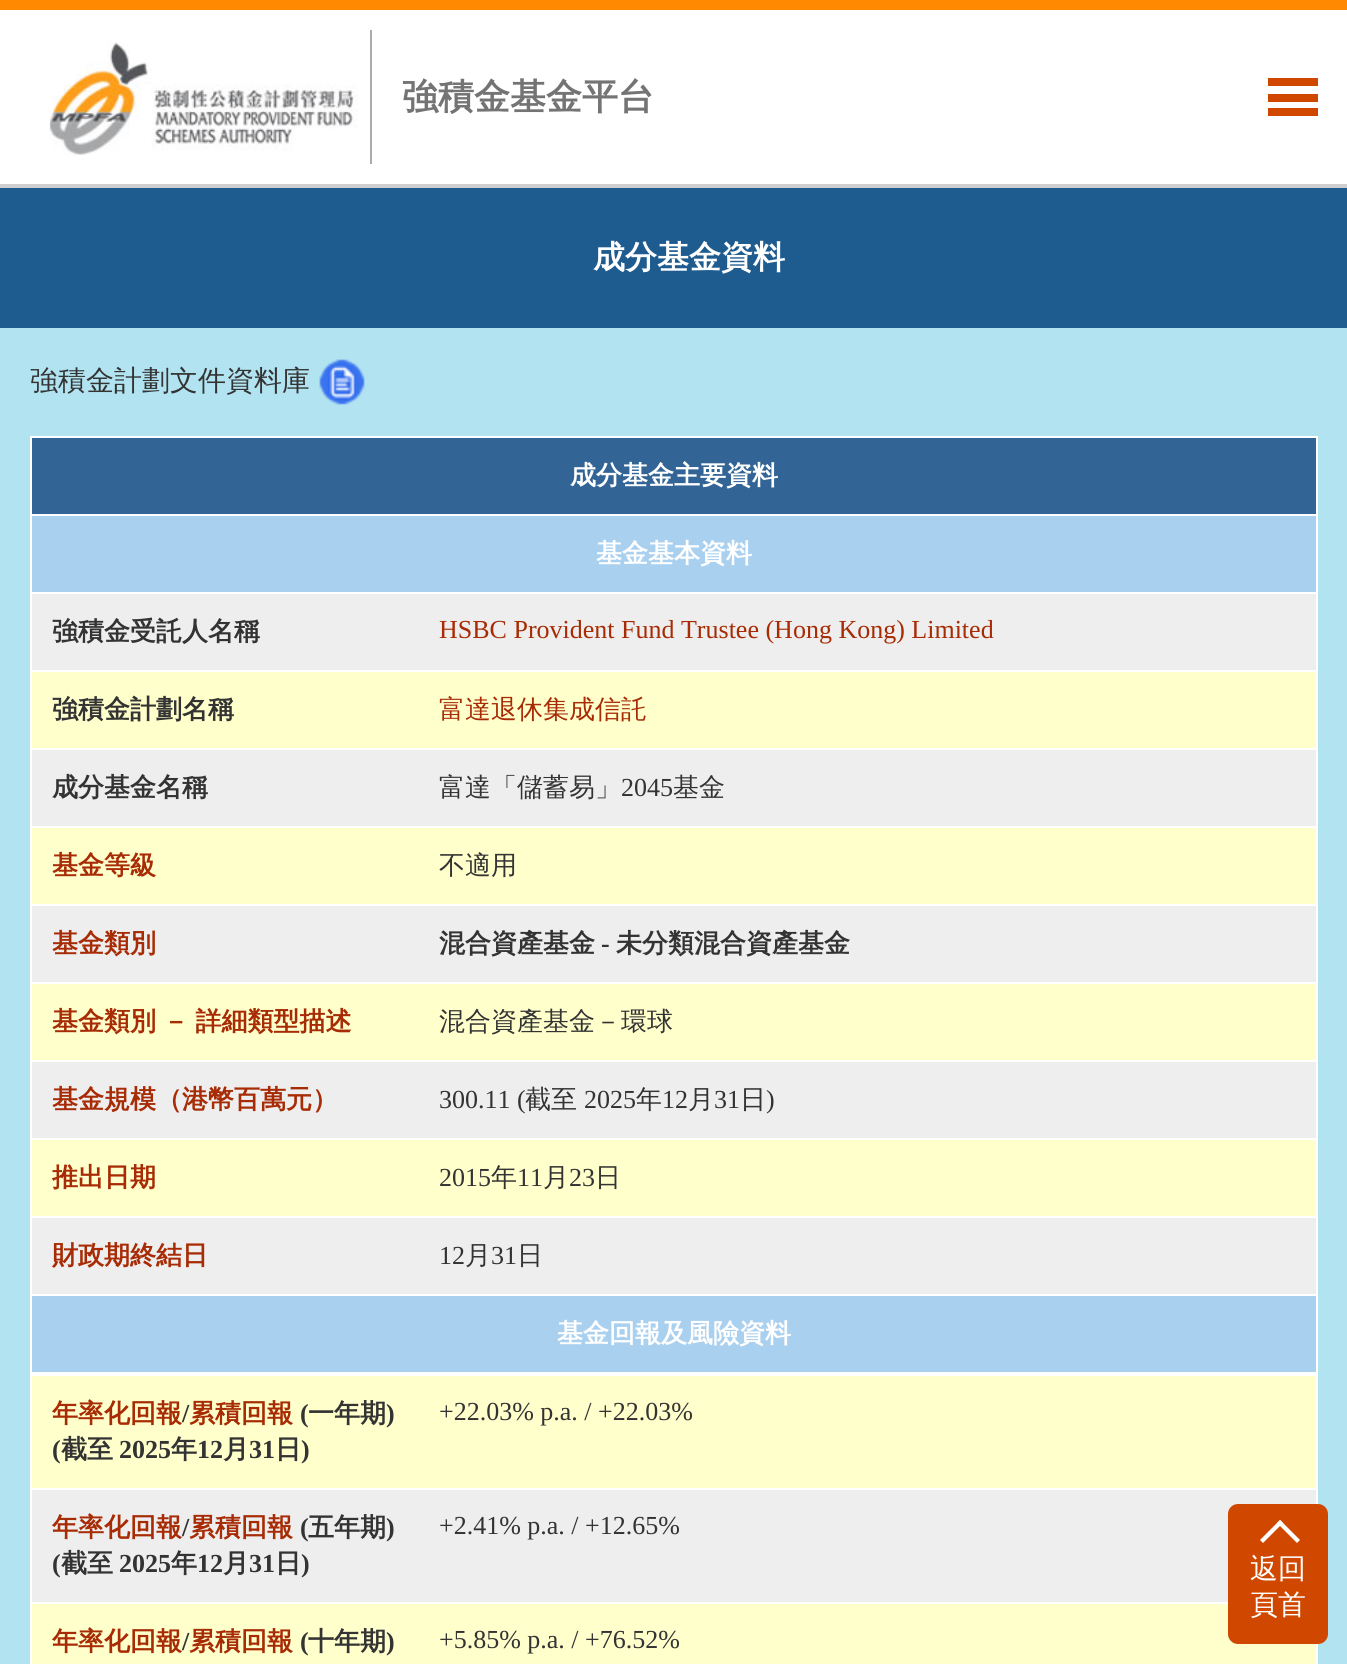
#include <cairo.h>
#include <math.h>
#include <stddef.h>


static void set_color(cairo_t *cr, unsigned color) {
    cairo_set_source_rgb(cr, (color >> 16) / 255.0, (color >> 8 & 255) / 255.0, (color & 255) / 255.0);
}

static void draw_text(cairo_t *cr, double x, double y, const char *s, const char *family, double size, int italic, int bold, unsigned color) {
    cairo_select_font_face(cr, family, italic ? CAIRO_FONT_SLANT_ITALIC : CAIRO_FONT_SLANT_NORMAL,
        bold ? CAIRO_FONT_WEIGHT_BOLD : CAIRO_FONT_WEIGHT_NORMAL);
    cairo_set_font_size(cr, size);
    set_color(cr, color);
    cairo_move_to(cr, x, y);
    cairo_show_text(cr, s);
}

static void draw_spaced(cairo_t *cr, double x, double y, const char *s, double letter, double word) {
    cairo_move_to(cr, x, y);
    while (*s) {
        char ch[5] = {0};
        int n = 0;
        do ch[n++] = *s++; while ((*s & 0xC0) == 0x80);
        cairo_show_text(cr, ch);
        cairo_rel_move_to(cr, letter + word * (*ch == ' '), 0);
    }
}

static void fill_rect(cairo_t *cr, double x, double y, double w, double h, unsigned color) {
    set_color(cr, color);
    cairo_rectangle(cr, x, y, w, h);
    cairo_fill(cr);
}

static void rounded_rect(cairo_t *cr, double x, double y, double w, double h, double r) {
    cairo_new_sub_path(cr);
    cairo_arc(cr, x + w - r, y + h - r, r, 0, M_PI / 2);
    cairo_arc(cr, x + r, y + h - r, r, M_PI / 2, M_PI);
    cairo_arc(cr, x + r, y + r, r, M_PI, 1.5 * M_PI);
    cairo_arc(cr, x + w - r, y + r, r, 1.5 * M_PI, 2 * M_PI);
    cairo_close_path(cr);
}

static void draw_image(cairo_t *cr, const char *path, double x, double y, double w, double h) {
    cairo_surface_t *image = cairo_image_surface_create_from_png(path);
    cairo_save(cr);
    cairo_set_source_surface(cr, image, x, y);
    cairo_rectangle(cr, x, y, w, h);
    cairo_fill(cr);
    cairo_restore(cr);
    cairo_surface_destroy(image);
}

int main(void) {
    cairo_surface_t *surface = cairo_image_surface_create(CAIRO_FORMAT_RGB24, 1347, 1664);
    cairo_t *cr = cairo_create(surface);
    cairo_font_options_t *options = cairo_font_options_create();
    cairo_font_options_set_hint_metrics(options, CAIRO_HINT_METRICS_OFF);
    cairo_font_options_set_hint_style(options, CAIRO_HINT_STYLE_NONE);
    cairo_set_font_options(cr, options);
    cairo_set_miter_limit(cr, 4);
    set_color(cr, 0xFFFFFF);
    cairo_paint(cr);
    fill_rect(cr, 0, 0, 1347, 10, 0xFF8900);
    fill_rect(cr, 0, 184, 1347, 4, 0xCECECE);
    draw_image(cr, "assets/img1.png", 49, 42, 309, 113);
    fill_rect(cr, 370, 30, 2, 134, 0xABACAE);
    draw_text(cr, 402, 109, "強積金基金平台", "WenQuanYi Zen Hei", 36, 0, 1, 0x747474);
    fill_rect(cr, 1268, 78, 50, 8, 0xD04800);
    fill_rect(cr, 1268, 94, 50, 8, 0xD04800);
    fill_rect(cr, 1268, 108, 50, 8, 0xD04800);
    fill_rect(cr, 0, 188, 1347, 140, 0x1E5B8F);
    draw_text(cr, 593, 268, "成分基金資料", "WenQuanYi Zen Hei", 32, 0, 1, 0xFFFFFF);
    fill_rect(cr, 0, 328, 1347, 1336, 0xB2E3F1);
    draw_text(cr, 30, 390, "強積金計劃文件資料庫", "WenQuanYi Zen Hei Medium", 28, 0, 0, 0x333333);
    draw_image(cr, "assets/img2.png", 319, 359, 46, 46);
    fill_rect(cr, 30, 436, 1288, 1228, 0xFFFFFF);
    fill_rect(cr, 32, 438, 1284, 76, 0x326495);
    draw_text(cr, 570, 484, "成分基金主要資料", "WenQuanYi Zen Hei", 26, 0, 1, 0xFFFFFF);
    fill_rect(cr, 32, 516, 1284, 76, 0xAAD0F0);
    draw_text(cr, 596, 562, "基金基本資料", "WenQuanYi Zen Hei", 26, 0, 1, 0xFFFFFF);
    fill_rect(cr, 32, 594, 1284, 76, 0xEEEEEE);
    draw_text(cr, 52, 640, "強積金受託人名稱", "WenQuanYi Zen Hei", 26, 0, 1, 0x333333);
    draw_text(cr, 439, 638, "HSBC Provident Fund Trustee (Hong Kong) Limited", "Liberation Serif", 26, 0, 0, 0xA72B04);
    fill_rect(cr, 32, 672, 1284, 76, 0xFFFFCC);
    draw_text(cr, 52, 718, "強積金計劃名稱", "WenQuanYi Zen Hei", 26, 0, 1, 0x333333);
    draw_text(cr, 439, 718, "富達退休集成信託", "WenQuanYi Zen Hei Medium", 26, 0, 0, 0xA72B04);
    fill_rect(cr, 32, 750, 1284, 76, 0xEEEEEE);
    draw_text(cr, 52, 796, "成分基金名稱", "WenQuanYi Zen Hei", 26, 0, 1, 0x333333);
    draw_text(cr, 439, 796, "富達「儲蓄易」", "WenQuanYi Zen Hei Medium", 26, 0, 0, 0x333333);
    draw_text(cr, 621, 796, "2045", "Liberation Serif", 26, 0, 0, 0x333333);
    draw_text(cr, 673, 796, "基金", "WenQuanYi Zen Hei Medium", 26, 0, 0, 0x333333);
    fill_rect(cr, 32, 828, 1284, 76, 0xFFFFCC);
    draw_text(cr, 52, 874, "基金等級", "WenQuanYi Zen Hei", 26, 0, 1, 0xA72B04);
    draw_text(cr, 439, 874, "不適用", "WenQuanYi Zen Hei Medium", 26, 0, 0, 0x333333);
    fill_rect(cr, 32, 906, 1284, 76, 0xEEEEEE);
    draw_text(cr, 52, 952, "基金類別", "WenQuanYi Zen Hei", 26, 0, 1, 0xA72B04);
    draw_text(cr, 439, 952, "混合資產基金", "WenQuanYi Zen Hei", 26, 0, 1, 0x333333);
    draw_text(cr, 601, 952, "-", "Liberation Serif", 26, 0, 1, 0x333333);
    draw_text(cr, 616, 952, "未分類混合資產基金", "WenQuanYi Zen Hei", 26, 0, 1, 0x333333);
    fill_rect(cr, 32, 984, 1284, 76, 0xFFFFCC);
    set_color(cr, 0xA72B04);
    draw_spaced(cr, 52, 1030, "基金類別 － 詳細類型描述", 0, -1);
    draw_text(cr, 439, 1030, "混合資產基金－環球", "WenQuanYi Zen Hei Medium", 26, 0, 0, 0x333333);
    fill_rect(cr, 32, 1062, 1284, 76, 0xEEEEEE);
    draw_text(cr, 52, 1108, "基金規模（港幣百萬元）", "WenQuanYi Zen Hei", 26, 0, 1, 0xA72B04);
    draw_text(cr, 439, 1108, "300.11 (", "Liberation Serif", 26, 0, 0, 0x333333);
    draw_text(cr, 525, 1108, "截至", "WenQuanYi Zen Hei Medium", 26, 0, 0, 0x333333);
    draw_text(cr, 584, 1108, "2025", "Liberation Serif", 26, 0, 0, 0x333333);
    draw_text(cr, 636, 1108, "年", "WenQuanYi Zen Hei Medium", 26, 0, 0, 0x333333);
    draw_text(cr, 662, 1108, "12", "Liberation Serif", 26, 0, 0, 0x333333);
    draw_text(cr, 688, 1108, "月", "WenQuanYi Zen Hei Medium", 26, 0, 0, 0x333333);
    draw_text(cr, 714, 1108, "31", "Liberation Serif", 26, 0, 0, 0x333333);
    draw_text(cr, 740, 1108, "日", "WenQuanYi Zen Hei Medium", 26, 0, 0, 0x333333);
    draw_text(cr, 766, 1108, ")", "Liberation Serif", 26, 0, 0, 0x333333);
    fill_rect(cr, 32, 1140, 1284, 76, 0xFFFFCC);
    draw_text(cr, 52, 1186, "推出日期", "WenQuanYi Zen Hei", 26, 0, 1, 0xA72B04);
    draw_text(cr, 439, 1186, "2015", "Liberation Serif", 26, 0, 0, 0x333333);
    draw_text(cr, 491, 1186, "年", "WenQuanYi Zen Hei Medium", 26, 0, 0, 0x333333);
    draw_text(cr, 517, 1186, "11", "Liberation Serif", 26, 0, 0, 0x333333);
    draw_text(cr, 543, 1186, "月", "WenQuanYi Zen Hei Medium", 26, 0, 0, 0x333333);
    draw_text(cr, 569, 1186, "23", "Liberation Serif", 26, 0, 0, 0x333333);
    draw_text(cr, 595, 1186, "日", "WenQuanYi Zen Hei Medium", 26, 0, 0, 0x333333);
    fill_rect(cr, 32, 1218, 1284, 76, 0xEEEEEE);
    draw_text(cr, 52, 1264, "財政期終結日", "WenQuanYi Zen Hei", 26, 0, 1, 0xA72B04);
    draw_text(cr, 439, 1264, "12", "Liberation Serif", 26, 0, 0, 0x333333);
    draw_text(cr, 465, 1264, "月", "WenQuanYi Zen Hei Medium", 26, 0, 0, 0x333333);
    draw_text(cr, 491, 1264, "31", "Liberation Serif", 26, 0, 0, 0x333333);
    draw_text(cr, 517, 1264, "日", "WenQuanYi Zen Hei Medium", 26, 0, 0, 0x333333);
    fill_rect(cr, 32, 1296, 1284, 76, 0xAAD0F0);
    draw_text(cr, 557, 1342, "基金回報及風險資料", "WenQuanYi Zen Hei", 26, 0, 1, 0xFFFFFF);
    fill_rect(cr, 32, 1376, 1284, 112, 0xFFFFCC);
    draw_text(cr, 52, 1422, "年率化回報", "WenQuanYi Zen Hei", 26, 0, 1, 0xA72B04);
    draw_text(cr, 182, 1422, "/", "Liberation Serif", 26, 0, 1, 0x333333);
    draw_text(cr, 189, 1422, "累積回報", "WenQuanYi Zen Hei", 26, 0, 1, 0xA72B04);
    draw_text(cr, 300, 1422, "(", "Liberation Serif", 26, 0, 1, 0x333333);
    draw_text(cr, 308, 1422, "一年期", "WenQuanYi Zen Hei", 26, 0, 1, 0x333333);
    draw_text(cr, 386, 1422, ")", "Liberation Serif", 26, 0, 1, 0x333333);
    draw_text(cr, 52, 1458, "(", "Liberation Serif", 26, 0, 1, 0x333333);
    draw_text(cr, 61, 1458, "截至", "WenQuanYi Zen Hei", 26, 0, 1, 0x333333);
    draw_text(cr, 119, 1458, "2025", "Liberation Serif", 26, 0, 1, 0x333333);
    draw_text(cr, 171, 1458, "年", "WenQuanYi Zen Hei", 26, 0, 1, 0x333333);
    draw_text(cr, 197, 1458, "12", "Liberation Serif", 26, 0, 1, 0x333333);
    draw_text(cr, 223, 1458, "月", "WenQuanYi Zen Hei", 26, 0, 1, 0x333333);
    draw_text(cr, 249, 1458, "31", "Liberation Serif", 26, 0, 1, 0x333333);
    draw_text(cr, 275, 1458, "日", "WenQuanYi Zen Hei", 26, 0, 1, 0x333333);
    draw_text(cr, 301, 1458, ")", "Liberation Serif", 26, 0, 1, 0x333333);
    draw_text(cr, 439, 1420, "+22.03% p.a. / +22.03%", "Liberation Serif", 26, 0, 0, 0x333333);
    fill_rect(cr, 32, 1490, 1284, 112, 0xEEEEEE);
    draw_text(cr, 52, 1536, "年率化回報", "WenQuanYi Zen Hei", 26, 0, 1, 0xA72B04);
    draw_text(cr, 182, 1536, "/", "Liberation Serif", 26, 0, 1, 0x333333);
    draw_text(cr, 189, 1536, "累積回報", "WenQuanYi Zen Hei", 26, 0, 1, 0xA72B04);
    draw_text(cr, 300, 1536, "(", "Liberation Serif", 26, 0, 1, 0x333333);
    draw_text(cr, 308, 1536, "五年期", "WenQuanYi Zen Hei", 26, 0, 1, 0x333333);
    draw_text(cr, 386, 1536, ")", "Liberation Serif", 26, 0, 1, 0x333333);
    draw_text(cr, 52, 1572, "(", "Liberation Serif", 26, 0, 1, 0x333333);
    draw_text(cr, 61, 1572, "截至", "WenQuanYi Zen Hei", 26, 0, 1, 0x333333);
    draw_text(cr, 119, 1572, "2025", "Liberation Serif", 26, 0, 1, 0x333333);
    draw_text(cr, 171, 1572, "年", "WenQuanYi Zen Hei", 26, 0, 1, 0x333333);
    draw_text(cr, 197, 1572, "12", "Liberation Serif", 26, 0, 1, 0x333333);
    draw_text(cr, 223, 1572, "月", "WenQuanYi Zen Hei", 26, 0, 1, 0x333333);
    draw_text(cr, 249, 1572, "31", "Liberation Serif", 26, 0, 1, 0x333333);
    draw_text(cr, 275, 1572, "日", "WenQuanYi Zen Hei", 26, 0, 1, 0x333333);
    draw_text(cr, 301, 1572, ")", "Liberation Serif", 26, 0, 1, 0x333333);
    draw_text(cr, 439, 1534, "+2.41% p.a. / +12.65%", "Liberation Serif", 26, 0, 0, 0x333333);
    fill_rect(cr, 32, 1604, 1284, 60, 0xFFFFCC);
    draw_text(cr, 52, 1650, "年率化回報", "WenQuanYi Zen Hei", 26, 0, 1, 0xA72B04);
    draw_text(cr, 182, 1650, "/", "Liberation Serif", 26, 0, 1, 0x333333);
    draw_text(cr, 189, 1650, "累積回報", "WenQuanYi Zen Hei", 26, 0, 1, 0xA72B04);
    draw_text(cr, 300, 1650, "(", "Liberation Serif", 26, 0, 1, 0x333333);
    draw_text(cr, 308, 1650, "十年期", "WenQuanYi Zen Hei", 26, 0, 1, 0x333333);
    draw_text(cr, 386, 1650, ")", "Liberation Serif", 26, 0, 1, 0x333333);
    draw_text(cr, 439, 1648, "+5.85% p.a. / +76.52%", "Liberation Serif", 26, 0, 0, 0x333333);
    set_color(cr, 0xD04800);
    rounded_rect(cr, 1228, 1504, 100, 140, 10);
    cairo_fill(cr);
    set_color(cr, 0xFFFFFF);
    cairo_new_path(cr);
    cairo_move_to(cr, 1263, 1543);
    cairo_line_to(cr, 1260, 1540);
    cairo_line_to(cr, 1280, 1520);
    cairo_line_to(cr, 1283, 1523);
    cairo_close_path(cr);
    cairo_fill(cr);
    cairo_new_path(cr);
    cairo_move_to(cr, 1297, 1543);
    cairo_line_to(cr, 1277, 1523);
    cairo_line_to(cr, 1280, 1520);
    cairo_line_to(cr, 1300, 1540);
    cairo_close_path(cr);
    cairo_fill(cr);
    draw_text(cr, 1250, 1578, "返回", "WenQuanYi Zen Hei Medium", 28, 0, 0, 0xFFFFFF);
    draw_text(cr, 1250, 1614, "頁首", "WenQuanYi Zen Hei Medium", 28, 0, 0, 0xFFFFFF);
    cairo_surface_write_to_png(surface, "output.png");
    cairo_font_options_destroy(options);
    cairo_destroy(cr);
    cairo_surface_destroy(surface);
    return 0;
}
